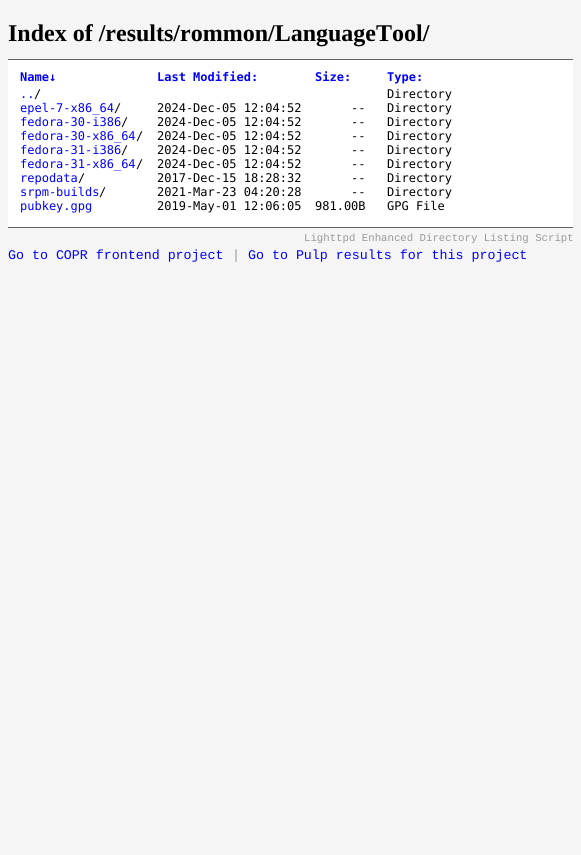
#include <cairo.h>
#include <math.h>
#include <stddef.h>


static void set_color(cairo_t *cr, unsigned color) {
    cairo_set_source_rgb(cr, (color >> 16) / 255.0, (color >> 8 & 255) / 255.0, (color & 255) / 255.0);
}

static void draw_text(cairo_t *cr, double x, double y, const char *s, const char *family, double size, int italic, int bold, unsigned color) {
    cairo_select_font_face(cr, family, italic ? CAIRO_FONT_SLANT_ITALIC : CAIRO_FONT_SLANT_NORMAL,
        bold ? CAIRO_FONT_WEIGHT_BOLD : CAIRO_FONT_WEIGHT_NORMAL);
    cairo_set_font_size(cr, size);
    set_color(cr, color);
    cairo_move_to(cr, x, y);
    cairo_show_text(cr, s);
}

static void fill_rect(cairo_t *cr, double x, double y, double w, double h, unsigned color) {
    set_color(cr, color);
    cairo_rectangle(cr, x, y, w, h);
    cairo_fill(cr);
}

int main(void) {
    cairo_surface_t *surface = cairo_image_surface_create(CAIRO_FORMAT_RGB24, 581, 855);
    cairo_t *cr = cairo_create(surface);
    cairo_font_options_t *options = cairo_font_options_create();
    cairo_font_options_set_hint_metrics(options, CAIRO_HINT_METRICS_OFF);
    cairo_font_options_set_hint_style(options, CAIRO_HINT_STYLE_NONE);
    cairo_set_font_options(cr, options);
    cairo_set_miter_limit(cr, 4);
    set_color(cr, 0xF5F5F5);
    cairo_paint(cr);
    draw_text(cr, 8, 41, "Index of /results/rommon/LanguageTool/", "Liberation Serif", 24, 0, 1, 0x000000);
    fill_rect(cr, 8, 60, 565, 167, 0xFFFFFF);
    fill_rect(cr, 8, 59, 565, 1, 0x646464);
    fill_rect(cr, 8, 227, 565, 1, 0x646464);
    draw_text(cr, 20, 81, "Name↓", "DejaVu Sans Mono", 12, 0, 1, 0x0000FF);
    draw_text(cr, 157, 81, "Last Modified:", "DejaVu Sans Mono", 12, 0, 1, 0x0000FF);
    draw_text(cr, 315, 81, "Size:", "DejaVu Sans Mono", 12, 0, 1, 0x0000FF);
    draw_text(cr, 387, 81, "Type:", "DejaVu Sans Mono", 12, 0, 1, 0x0000FF);
    draw_text(cr, 20, 98, "..", "DejaVu Sans Mono", 12, 0, 0, 0x0000FF);
    draw_text(cr, 34, 98, "/", "DejaVu Sans Mono", 12, 0, 0, 0x000000);
    draw_text(cr, 387, 98, "Directory", "DejaVu Sans Mono", 12, 0, 0, 0x000000);
    draw_text(cr, 20, 112, "epel-7-x86_64", "DejaVu Sans Mono", 12, 0, 0, 0x0000FF);
    draw_text(cr, 114, 112, "/", "DejaVu Sans Mono", 12, 0, 0, 0x000000);
    draw_text(cr, 157, 112, "2024-Dec-05 12:04:52", "DejaVu Sans Mono", 12, 0, 0, 0x000000);
    draw_text(cr, 351, 112, "--", "DejaVu Sans Mono", 12, 0, 0, 0x000000);
    draw_text(cr, 387, 112, "Directory", "DejaVu Sans Mono", 12, 0, 0, 0x000000);
    draw_text(cr, 20, 126, "fedora-30-i386", "DejaVu Sans Mono", 12, 0, 0, 0x0000FF);
    draw_text(cr, 121, 126, "/", "DejaVu Sans Mono", 12, 0, 0, 0x000000);
    draw_text(cr, 157, 126, "2024-Dec-05 12:04:52", "DejaVu Sans Mono", 12, 0, 0, 0x000000);
    draw_text(cr, 351, 126, "--", "DejaVu Sans Mono", 12, 0, 0, 0x000000);
    draw_text(cr, 387, 126, "Directory", "DejaVu Sans Mono", 12, 0, 0, 0x000000);
    draw_text(cr, 20, 140, "fedora-30-x86_64", "DejaVu Sans Mono", 12, 0, 0, 0x0000FF);
    draw_text(cr, 136, 140, "/", "DejaVu Sans Mono", 12, 0, 0, 0x000000);
    draw_text(cr, 157, 140, "2024-Dec-05 12:04:52", "DejaVu Sans Mono", 12, 0, 0, 0x000000);
    draw_text(cr, 351, 140, "--", "DejaVu Sans Mono", 12, 0, 0, 0x000000);
    draw_text(cr, 387, 140, "Directory", "DejaVu Sans Mono", 12, 0, 0, 0x000000);
    draw_text(cr, 20, 154, "fedora-31-i386", "DejaVu Sans Mono", 12, 0, 0, 0x0000FF);
    draw_text(cr, 121, 154, "/", "DejaVu Sans Mono", 12, 0, 0, 0x000000);
    draw_text(cr, 157, 154, "2024-Dec-05 12:04:52", "DejaVu Sans Mono", 12, 0, 0, 0x000000);
    draw_text(cr, 351, 154, "--", "DejaVu Sans Mono", 12, 0, 0, 0x000000);
    draw_text(cr, 387, 154, "Directory", "DejaVu Sans Mono", 12, 0, 0, 0x000000);
    draw_text(cr, 20, 168, "fedora-31-x86_64", "DejaVu Sans Mono", 12, 0, 0, 0x0000FF);
    draw_text(cr, 136, 168, "/", "DejaVu Sans Mono", 12, 0, 0, 0x000000);
    draw_text(cr, 157, 168, "2024-Dec-05 12:04:52", "DejaVu Sans Mono", 12, 0, 0, 0x000000);
    draw_text(cr, 351, 168, "--", "DejaVu Sans Mono", 12, 0, 0, 0x000000);
    draw_text(cr, 387, 168, "Directory", "DejaVu Sans Mono", 12, 0, 0, 0x000000);
    draw_text(cr, 20, 182, "repodata", "DejaVu Sans Mono", 12, 0, 0, 0x0000FF);
    draw_text(cr, 78, 182, "/", "DejaVu Sans Mono", 12, 0, 0, 0x000000);
    draw_text(cr, 157, 182, "2017-Dec-15 18:28:32", "DejaVu Sans Mono", 12, 0, 0, 0x000000);
    draw_text(cr, 351, 182, "--", "DejaVu Sans Mono", 12, 0, 0, 0x000000);
    draw_text(cr, 387, 182, "Directory", "DejaVu Sans Mono", 12, 0, 0, 0x000000);
    draw_text(cr, 20, 196, "srpm-builds", "DejaVu Sans Mono", 12, 0, 0, 0x0000FF);
    draw_text(cr, 99, 196, "/", "DejaVu Sans Mono", 12, 0, 0, 0x000000);
    draw_text(cr, 157, 196, "2021-Mar-23 04:20:28", "DejaVu Sans Mono", 12, 0, 0, 0x000000);
    draw_text(cr, 351, 196, "--", "DejaVu Sans Mono", 12, 0, 0, 0x000000);
    draw_text(cr, 387, 196, "Directory", "DejaVu Sans Mono", 12, 0, 0, 0x000000);
    draw_text(cr, 20, 210, "pubkey.gpg", "DejaVu Sans Mono", 12, 0, 0, 0x0000FF);
    draw_text(cr, 157, 210, "2019-May-01 12:06:05", "DejaVu Sans Mono", 12, 0, 0, 0x000000);
    draw_text(cr, 315, 210, "981.00B", "DejaVu Sans Mono", 12, 0, 0, 0x000000);
    draw_text(cr, 387, 210, "GPG File", "DejaVu Sans Mono", 12, 0, 0, 0x000000);
    draw_text(cr, 304, 241, "Lighttpd Enhanced Directory Listing Script", "Liberation Mono", 10.7, 0, 0, 0x999999);
    draw_text(cr, 8, 259, "Go to COPR frontend project", "Liberation Mono", 13.3, 0, 0, 0x0000FF);
    draw_text(cr, 232, 259, "|", "Liberation Mono", 13.3, 0, 0, 0x999999);
    draw_text(cr, 248, 259, "Go to Pulp results for this project", "Liberation Mono", 13.3, 0, 0, 0x0000FF);
    cairo_surface_write_to_png(surface, "output.png");
    cairo_font_options_destroy(options);
    cairo_destroy(cr);
    cairo_surface_destroy(surface);
    return 0;
}
